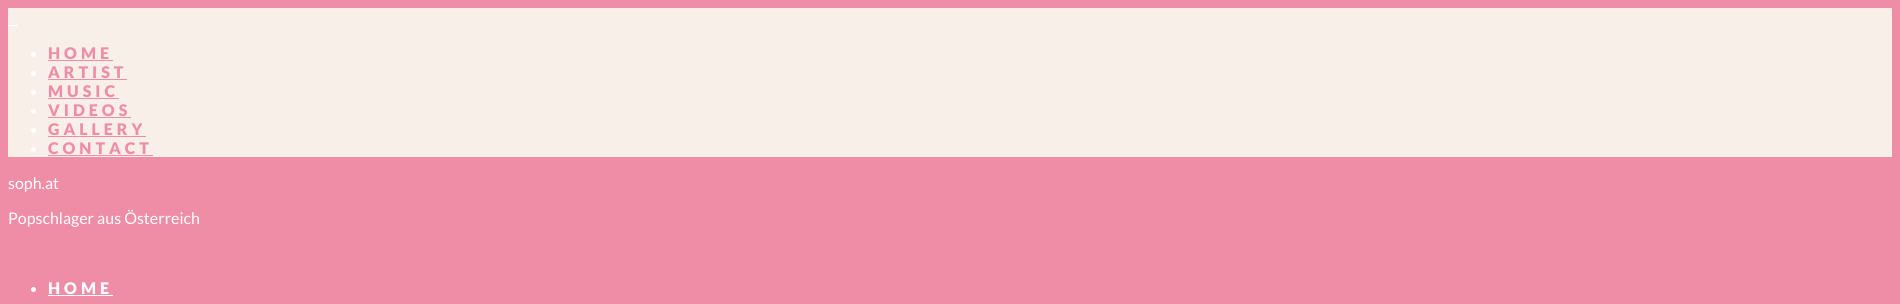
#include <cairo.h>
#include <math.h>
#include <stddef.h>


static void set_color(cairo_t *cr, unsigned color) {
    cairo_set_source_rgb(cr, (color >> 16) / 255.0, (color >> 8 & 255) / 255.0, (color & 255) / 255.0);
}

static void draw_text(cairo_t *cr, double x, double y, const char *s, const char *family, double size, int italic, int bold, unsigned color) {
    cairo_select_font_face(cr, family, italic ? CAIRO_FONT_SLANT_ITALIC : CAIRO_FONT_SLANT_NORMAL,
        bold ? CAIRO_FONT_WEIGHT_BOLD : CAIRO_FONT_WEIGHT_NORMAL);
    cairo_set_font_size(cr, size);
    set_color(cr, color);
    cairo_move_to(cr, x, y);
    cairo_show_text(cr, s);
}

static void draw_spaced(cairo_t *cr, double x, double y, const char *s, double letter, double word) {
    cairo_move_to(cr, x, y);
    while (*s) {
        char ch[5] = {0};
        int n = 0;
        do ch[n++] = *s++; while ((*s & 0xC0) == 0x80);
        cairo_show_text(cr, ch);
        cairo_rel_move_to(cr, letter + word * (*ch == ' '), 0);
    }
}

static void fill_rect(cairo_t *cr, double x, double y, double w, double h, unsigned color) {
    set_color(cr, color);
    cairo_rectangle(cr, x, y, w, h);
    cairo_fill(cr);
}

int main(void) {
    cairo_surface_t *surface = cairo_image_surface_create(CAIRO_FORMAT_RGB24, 1900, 304);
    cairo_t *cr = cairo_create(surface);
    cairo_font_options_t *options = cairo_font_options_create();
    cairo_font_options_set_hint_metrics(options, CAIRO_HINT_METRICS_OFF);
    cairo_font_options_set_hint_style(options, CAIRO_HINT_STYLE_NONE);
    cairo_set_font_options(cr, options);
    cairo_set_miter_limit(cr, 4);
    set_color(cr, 0xEF8DA7);
    cairo_paint(cr);
    fill_rect(cr, 8, 8, 1884, 149, 0xF7EFE8);
    fill_rect(cr, 8, 25, 10, 1, 0xFFFFFF);
    cairo_arc(cr, 33.5, 54.5, 2.5, 0, 2 * M_PI);
    cairo_fill(cr);
    cairo_select_font_face(cr, "Lato Black", CAIRO_FONT_SLANT_NORMAL, CAIRO_FONT_WEIGHT_NORMAL);
    cairo_set_font_size(cr, 16);
    set_color(cr, 0xEF8DA7);
    draw_spaced(cr, 48, 59, "HOME", 4, 0);
    fill_rect(cr, 48, 60, 65, 1, 0xEF8DA7);
    set_color(cr, 0xFFFFFF);
    cairo_new_path(cr);
    cairo_arc(cr, 33.5, 73.5, 2.5, 0, 2 * M_PI);
    cairo_fill(cr);
    set_color(cr, 0xEF8DA7);
    draw_spaced(cr, 48, 78, "ARTIST", 4, 0);
    fill_rect(cr, 48, 79, 79, 1, 0xEF8DA7);
    set_color(cr, 0xFFFFFF);
    cairo_new_path(cr);
    cairo_arc(cr, 33.5, 92.5, 2.5, 0, 2 * M_PI);
    cairo_fill(cr);
    set_color(cr, 0xEF8DA7);
    draw_spaced(cr, 48, 97, "MUSIC", 4, 0);
    fill_rect(cr, 48, 98, 71, 1, 0xEF8DA7);
    set_color(cr, 0xFFFFFF);
    cairo_new_path(cr);
    cairo_arc(cr, 33.5, 111.5, 2.5, 0, 2 * M_PI);
    cairo_fill(cr);
    set_color(cr, 0xEF8DA7);
    draw_spaced(cr, 48, 116, "VIDEOS", 4, 0);
    fill_rect(cr, 48, 117, 83, 1, 0xEF8DA7);
    set_color(cr, 0xFFFFFF);
    cairo_new_path(cr);
    cairo_arc(cr, 33.5, 130.5, 2.5, 0, 2 * M_PI);
    cairo_fill(cr);
    set_color(cr, 0xEF8DA7);
    draw_spaced(cr, 48, 135, "GALLERY", 4, 0);
    fill_rect(cr, 48, 136, 98, 1, 0xEF8DA7);
    set_color(cr, 0xFFFFFF);
    cairo_new_path(cr);
    cairo_arc(cr, 33.5, 149.5, 2.5, 0, 2 * M_PI);
    cairo_fill(cr);
    set_color(cr, 0xEF8DA7);
    draw_spaced(cr, 48, 154, "CONTACT", 4, 0);
    fill_rect(cr, 48, 155, 105, 1, 0xEF8DA7);
    draw_text(cr, 8, 189, "soph.at", "Lato", 16, 0, 0, 0xFFFFFF);
    draw_text(cr, 8, 224, "Popschlager aus Österreich", "Lato", 16, 0, 0, 0xFFFFFF);
    cairo_new_path(cr);
    cairo_arc(cr, 33.5, 289.5, 2.5, 0, 2 * M_PI);
    cairo_fill(cr);
    cairo_select_font_face(cr, "Lato Black", CAIRO_FONT_SLANT_NORMAL, CAIRO_FONT_WEIGHT_NORMAL);
    draw_spaced(cr, 48, 294, "HOME", 4, 0);
    fill_rect(cr, 48, 295, 65, 1, 0xFFFFFF);
    cairo_surface_write_to_png(surface, "output.png");
    cairo_font_options_destroy(options);
    cairo_destroy(cr);
    cairo_surface_destroy(surface);
    return 0;
}
